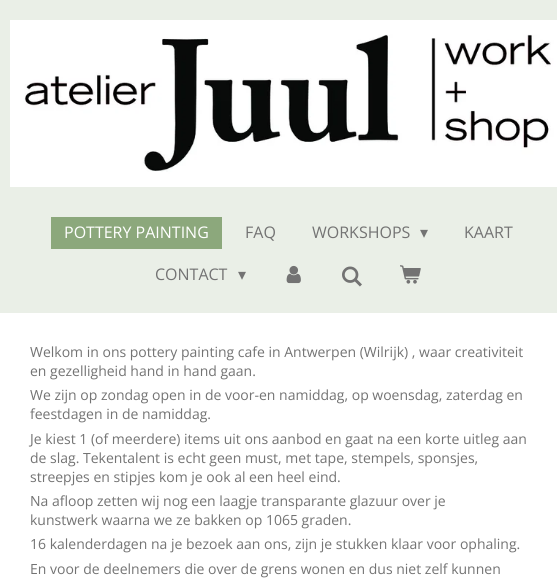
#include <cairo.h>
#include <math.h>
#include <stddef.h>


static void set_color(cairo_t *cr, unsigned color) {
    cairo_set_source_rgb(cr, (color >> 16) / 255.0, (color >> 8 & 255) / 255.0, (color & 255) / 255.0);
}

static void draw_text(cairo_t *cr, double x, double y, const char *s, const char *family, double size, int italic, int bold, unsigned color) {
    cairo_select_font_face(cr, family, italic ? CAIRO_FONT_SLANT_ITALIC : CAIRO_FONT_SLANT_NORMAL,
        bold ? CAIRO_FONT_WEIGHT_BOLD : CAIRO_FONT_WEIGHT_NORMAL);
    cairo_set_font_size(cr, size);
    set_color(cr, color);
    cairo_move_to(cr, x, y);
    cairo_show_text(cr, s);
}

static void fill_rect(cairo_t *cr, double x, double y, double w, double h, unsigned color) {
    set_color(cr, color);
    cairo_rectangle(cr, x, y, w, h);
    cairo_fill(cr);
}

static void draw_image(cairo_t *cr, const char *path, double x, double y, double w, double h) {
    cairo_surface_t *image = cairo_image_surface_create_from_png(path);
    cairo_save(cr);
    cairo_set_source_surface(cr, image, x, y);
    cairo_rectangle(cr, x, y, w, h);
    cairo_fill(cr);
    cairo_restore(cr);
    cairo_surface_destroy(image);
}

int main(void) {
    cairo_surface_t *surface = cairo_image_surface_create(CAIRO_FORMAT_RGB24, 557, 584);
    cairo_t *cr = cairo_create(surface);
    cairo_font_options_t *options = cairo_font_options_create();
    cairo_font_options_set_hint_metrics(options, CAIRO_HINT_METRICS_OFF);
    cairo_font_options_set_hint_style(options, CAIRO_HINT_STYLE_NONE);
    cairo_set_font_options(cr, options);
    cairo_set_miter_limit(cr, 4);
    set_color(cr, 0xEAEFE7);
    cairo_paint(cr);
    draw_image(cr, "assets/img1.png", 10, 20, 547, 167);
    fill_rect(cr, 51, 217, 171, 32, 0x8CA87C);
    draw_text(cr, 64, 238, "POTTERY PAINTING", "Open Sans", 16, 0, 0, 0xFFFFFF);
    draw_text(cr, 245, 238, "FAQ", "Open Sans", 16, 0, 0, 0x737373);
    draw_text(cr, 312, 238, "WORKSHOPS", "Open Sans", 16, 0, 0, 0x737373);
    draw_text(cr, 420, 238, "▾", "DejaVu Sans", 16, 0, 0, 0x737373);
    draw_text(cr, 464, 238, "KAART", "Open Sans", 16, 0, 0, 0x737373);
    draw_text(cr, 155, 280, "CONTACT", "Open Sans", 16, 0, 0, 0x737373);
    draw_text(cr, 238, 280, "▾", "DejaVu Sans", 16, 0, 0, 0x737373);
    draw_image(cr, "assets/img2.png", 286, 265, 15, 19);
    draw_image(cr, "assets/img3.png", 342, 266, 20, 21);
    draw_image(cr, "assets/img4.png", 400, 265, 21, 19);
    fill_rect(cr, 0, 313, 557, 271, 0xFFFFFF);
    draw_text(cr, 30, 357, "Welkom in ons pottery painting cafe in Antwerpen (Wilrijk) , waar creativiteit", "Open Sans", 14, 0, 0, 0x737373);
    draw_text(cr, 30, 376, "en gezelligheid hand in hand gaan.", "Open Sans", 14, 0, 0, 0x737373);
    draw_text(cr, 30, 400, "We zijn op zondag open in de voor-en namiddag, op woensdag, zaterdag en", "Open Sans", 14, 0, 0, 0x737373);
    draw_text(cr, 30, 419, "feestdagen in de namiddag.", "Open Sans", 14, 0, 0, 0x737373);
    draw_text(cr, 30, 444, "Je kiest 1 (of meerdere) items uit ons aanbod en gaat na een korte uitleg aan", "Open Sans", 14, 0, 0, 0x737373);
    draw_text(cr, 30, 463, "de slag. Tekentalent is echt geen must, met tape, stempels, sponsjes,", "Open Sans", 14, 0, 0, 0x737373);
    draw_text(cr, 30, 482, "streepjes en stipjes kom je ook al een heel eind.", "Open Sans", 14, 0, 0, 0x737373);
    draw_text(cr, 30, 506, "Na afloop zetten wij nog een laagje transparante glazuur over je", "Open Sans", 14, 0, 0, 0x737373);
    draw_text(cr, 30, 525, "kunstwerk waarna we ze bakken op 1065 graden.", "Open Sans", 14, 0, 0, 0x737373);
    draw_text(cr, 30, 549, "16 kalenderdagen na je bezoek aan ons, zijn je stukken klaar voor ophaling.", "Open Sans", 14, 0, 0, 0x737373);
    draw_text(cr, 30, 574, "En voor de deelnemers die over de grens wonen en dus niet zelf kunnen", "Open Sans", 14, 0, 0, 0x737373);
    cairo_surface_write_to_png(surface, "output.png");
    cairo_font_options_destroy(options);
    cairo_destroy(cr);
    cairo_surface_destroy(surface);
    return 0;
}
